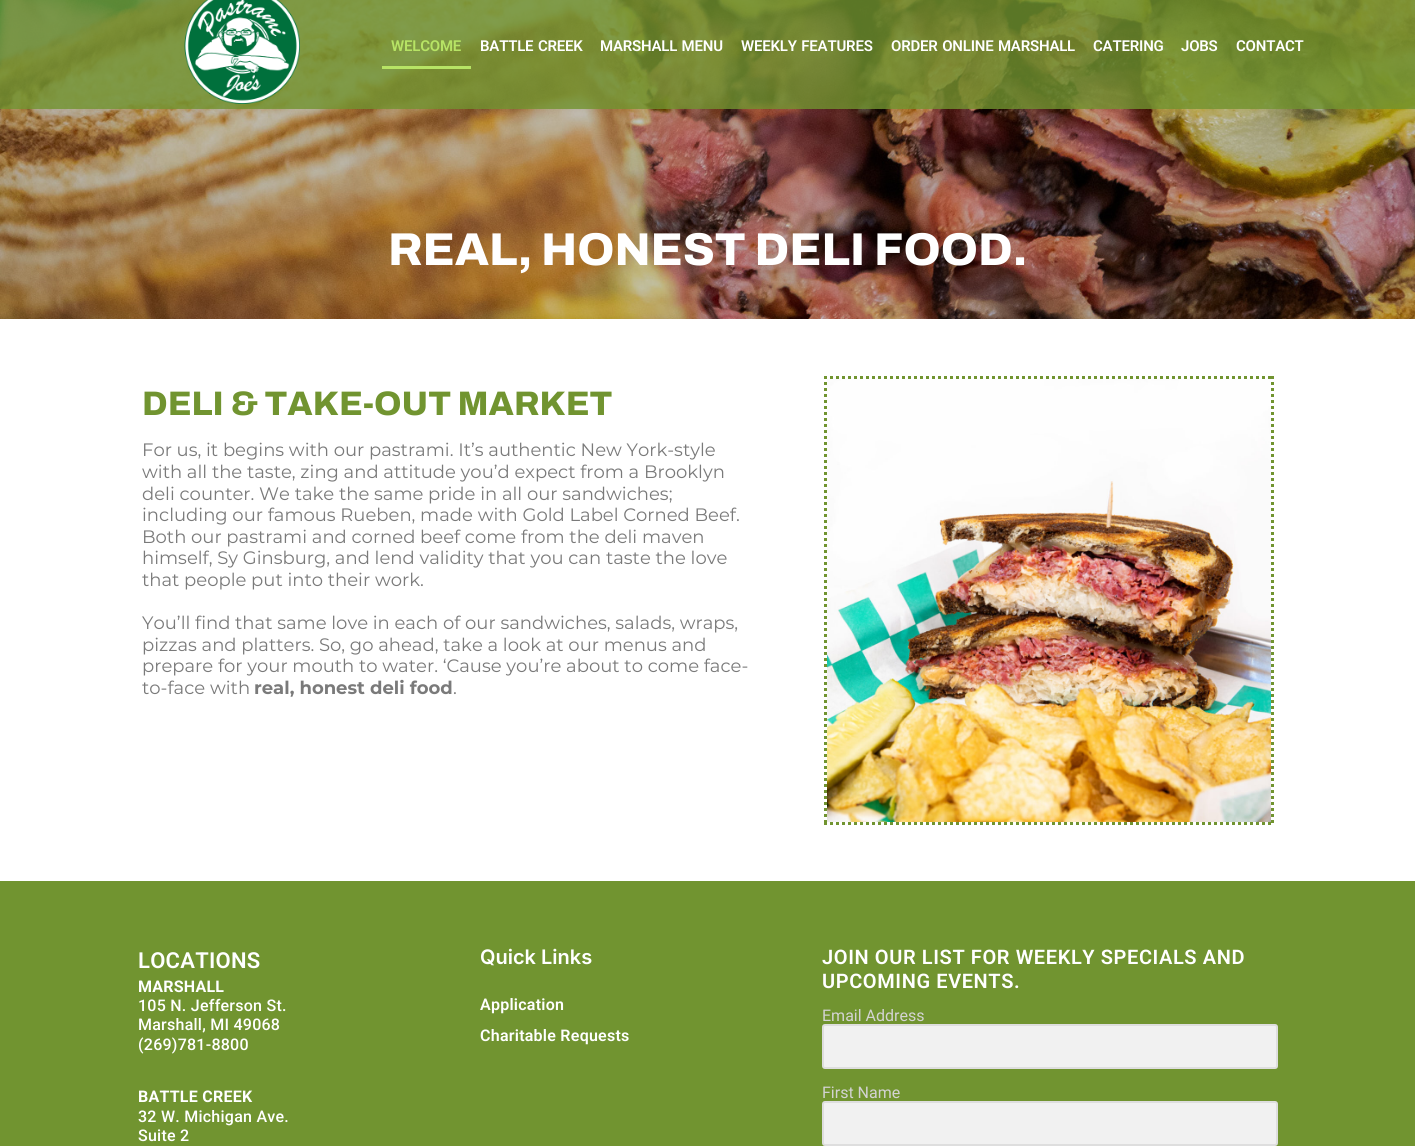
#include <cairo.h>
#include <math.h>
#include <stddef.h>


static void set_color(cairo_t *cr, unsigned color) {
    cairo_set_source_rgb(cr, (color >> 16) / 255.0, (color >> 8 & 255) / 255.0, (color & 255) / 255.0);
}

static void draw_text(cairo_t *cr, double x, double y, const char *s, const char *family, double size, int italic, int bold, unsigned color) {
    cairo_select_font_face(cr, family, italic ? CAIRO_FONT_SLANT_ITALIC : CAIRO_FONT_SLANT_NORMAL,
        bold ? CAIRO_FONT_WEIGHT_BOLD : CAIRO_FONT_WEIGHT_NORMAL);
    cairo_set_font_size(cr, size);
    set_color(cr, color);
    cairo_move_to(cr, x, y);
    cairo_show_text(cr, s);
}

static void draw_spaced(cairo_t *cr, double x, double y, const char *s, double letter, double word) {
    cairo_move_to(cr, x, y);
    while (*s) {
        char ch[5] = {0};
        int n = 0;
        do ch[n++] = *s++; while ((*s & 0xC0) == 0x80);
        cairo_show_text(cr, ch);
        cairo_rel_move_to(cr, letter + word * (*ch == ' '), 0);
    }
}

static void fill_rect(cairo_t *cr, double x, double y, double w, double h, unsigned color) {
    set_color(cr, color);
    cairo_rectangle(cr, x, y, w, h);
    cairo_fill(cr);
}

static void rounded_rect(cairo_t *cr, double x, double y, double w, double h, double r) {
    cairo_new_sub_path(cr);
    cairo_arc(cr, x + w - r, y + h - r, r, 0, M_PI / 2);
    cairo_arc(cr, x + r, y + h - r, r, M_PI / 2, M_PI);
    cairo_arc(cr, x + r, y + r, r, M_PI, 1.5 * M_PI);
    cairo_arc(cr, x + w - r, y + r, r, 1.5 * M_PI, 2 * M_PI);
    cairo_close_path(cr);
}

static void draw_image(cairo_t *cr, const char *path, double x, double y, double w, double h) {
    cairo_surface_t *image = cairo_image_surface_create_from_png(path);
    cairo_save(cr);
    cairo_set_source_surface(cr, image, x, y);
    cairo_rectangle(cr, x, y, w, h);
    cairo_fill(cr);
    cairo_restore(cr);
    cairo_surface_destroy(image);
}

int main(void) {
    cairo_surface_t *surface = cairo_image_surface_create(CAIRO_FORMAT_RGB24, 1415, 1146);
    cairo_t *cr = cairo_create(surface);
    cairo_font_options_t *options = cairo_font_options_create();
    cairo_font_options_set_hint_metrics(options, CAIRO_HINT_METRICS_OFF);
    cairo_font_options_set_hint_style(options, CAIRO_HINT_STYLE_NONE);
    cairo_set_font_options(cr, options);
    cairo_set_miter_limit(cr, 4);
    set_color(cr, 0xFFFFFF);
    cairo_paint(cr);
    draw_image(cr, "assets/img2.png", 0, 0, 1415, 319);
    cairo_set_source_rgba(cr, 0.443, 0.58, 0.188, 0.8);
    cairo_rectangle(cr, 0, 0, 1415, 109);
    cairo_fill(cr);
    draw_image(cr, "assets/img1.png", 184, 0, 116, 104);
    cairo_select_font_face(cr, "Roboto SemiBold", CAIRO_FONT_SLANT_NORMAL, CAIRO_FONT_WEIGHT_NORMAL);
    cairo_set_font_size(cr, 15);
    set_color(cr, 0xB7E465);
    draw_spaced(cr, 391, 51, "WELCOME", -0.2, 0);
    fill_rect(cr, 382, 66, 89, 3, 0xB7E465);
    set_color(cr, 0xFFFFFF);
    draw_spaced(cr, 480, 51, "BATTLE CREEK", -0.2, 1);
    draw_spaced(cr, 600, 51, "MARSHALL MENU", -0.2, 1);
    draw_spaced(cr, 741, 51, "WEEKLY FEATURES", -0.2, 1);
    draw_spaced(cr, 891, 51, "ORDER ONLINE MARSHALL", -0.2, 1);
    draw_spaced(cr, 1093, 51, "CATERING", -0.2, 0);
    draw_spaced(cr, 1181, 51, "JOBS", -0.2, 0);
    draw_spaced(cr, 1236, 51, "CONTACT", -0.2, 0);
    draw_text(cr, 388, 265, "REAL, HONEST DELI FOOD.", "Archivo ExtraBold", 46, 0, 0, 0xFFFFFF);
    draw_text(cr, 142, 415, "DELI & TAKE-OUT MARKET", "Archivo ExtraBold", 34, 0, 0, 0x719430);
    draw_text(cr, 142, 456, "For us, it begins with our pastrami. It’s authentic New York-style", "Montserrat", 18, 0, 0, 0x7A7A7A);
    draw_text(cr, 142, 478, "with all the taste, zing and attitude you’d expect from a Brooklyn", "Montserrat", 18, 0, 0, 0x7A7A7A);
    draw_text(cr, 142, 500, "deli counter. We take the same pride in all our sandwiches;", "Montserrat", 18, 0, 0, 0x7A7A7A);
    draw_text(cr, 142, 521, "including our famous Rueben, made with Gold Label Corned Beef.", "Montserrat", 18, 0, 0, 0x7A7A7A);
    draw_text(cr, 142, 543, "Both our pastrami and corned beef come from the deli maven", "Montserrat", 18, 0, 0, 0x7A7A7A);
    draw_text(cr, 142, 564, "himself, Sy Ginsburg, and lend validity that you can taste the love", "Montserrat", 18, 0, 0, 0x7A7A7A);
    draw_text(cr, 142, 586, "that people put into their work.", "Montserrat", 18, 0, 0, 0x7A7A7A);
    draw_text(cr, 142, 629, "You’ll find that same love in each of our sandwiches, salads, wraps,", "Montserrat", 18, 0, 0, 0x7A7A7A);
    draw_text(cr, 142, 651, "pizzas and platters. So, go ahead, take a look at our menus and", "Montserrat", 18, 0, 0, 0x7A7A7A);
    draw_text(cr, 142, 672, "prepare for your mouth to water. ‘Cause you’re about to come face-", "Montserrat", 18, 0, 0, 0x7A7A7A);
    draw_text(cr, 142, 694, "to-face with", "Montserrat", 18, 0, 0, 0x7A7A7A);
    draw_text(cr, 254, 694, "real, honest deli food", "Montserrat", 18, 0, 1, 0x7A7A7A);
    draw_text(cr, 453, 694, ".", "Montserrat", 18, 0, 0, 0x7A7A7A);
    cairo_new_path(cr);
    cairo_move_to(cr, 824, 377.5);
    cairo_line_to(cr, 1274, 377.5);
    set_color(cr, 0x719430);
    cairo_set_line_width(cr, 3);
    cairo_set_dash(cr, (double[]){3, 3}, 2, 0);
    cairo_stroke(cr);
    cairo_new_path(cr);
    cairo_move_to(cr, 1272.5, 376);
    cairo_line_to(cr, 1272.5, 825);
    cairo_stroke(cr);
    cairo_new_path(cr);
    cairo_move_to(cr, 824, 823.5);
    cairo_line_to(cr, 1274, 823.5);
    cairo_stroke(cr);
    cairo_new_path(cr);
    cairo_move_to(cr, 825.5, 376);
    cairo_line_to(cr, 825.5, 825);
    cairo_stroke(cr);
    draw_image(cr, "assets/img3.png", 827, 379, 444, 443);
    fill_rect(cr, 0, 881, 1415, 265, 0x719430);
    cairo_select_font_face(cr, "Roboto SemiBold", CAIRO_FONT_SLANT_NORMAL, CAIRO_FONT_WEIGHT_NORMAL);
    cairo_set_font_size(cr, 22);
    set_color(cr, 0xFFFFFF);
    draw_spaced(cr, 138, 968, "LOCATIONS", 0.25, 0);
    cairo_select_font_face(cr, "Roboto", CAIRO_FONT_SLANT_NORMAL, CAIRO_FONT_WEIGHT_BOLD);
    cairo_set_font_size(cr, 16);
    draw_spaced(cr, 138, 992, "MARSHALL", 0.25, 0);
    cairo_select_font_face(cr, "Roboto Medium", CAIRO_FONT_SLANT_NORMAL, CAIRO_FONT_WEIGHT_NORMAL);
    draw_spaced(cr, 138, 1011, "105 N. Jefferson St.", 0.25, 0);
    draw_spaced(cr, 138, 1030, "Marshall, MI 49068", 0.25, 0);
    draw_spaced(cr, 138, 1050, "(269)781-8800", 0.25, 0);
    cairo_select_font_face(cr, "Roboto", CAIRO_FONT_SLANT_NORMAL, CAIRO_FONT_WEIGHT_BOLD);
    draw_spaced(cr, 138, 1102, "BATTLE CREEK", 0.25, 0);
    cairo_select_font_face(cr, "Roboto Medium", CAIRO_FONT_SLANT_NORMAL, CAIRO_FONT_WEIGHT_NORMAL);
    draw_spaced(cr, 138, 1122, "32 W. Michigan Ave.", 0.25, 0);
    draw_spaced(cr, 138, 1141, "Suite 2", 0.25, 0);
    draw_text(cr, 480, 964, "Quick Links", "Inter SemiBold", 20, 0, 0, 0xFFFFFF);
    cairo_select_font_face(cr, "Roboto SemiBold", CAIRO_FONT_SLANT_NORMAL, CAIRO_FONT_WEIGHT_NORMAL);
    cairo_set_font_size(cr, 16);
    draw_spaced(cr, 480, 1010, "Application", 0.25, 0);
    draw_spaced(cr, 480, 1041, "Charitable Requests", 0.25, 0);
    cairo_set_font_size(cr, 20);
    draw_spaced(cr, 822, 964, "JOIN OUR LIST FOR WEEKLY SPECIALS AND", 0.6, 0);
    draw_spaced(cr, 822, 988, "UPCOMING EVENTS.", 0.6, 0);
    draw_text(cr, 822, 1021, "Email Address", "Roboto", 16, 0, 0, 0xD3D3D3);
    set_color(cr, 0xF1F1F1);
    rounded_rect(cr, 822, 1024, 456, 45, 3);
    cairo_fill(cr);
    rounded_rect(cr, 823, 1025, 454, 43, 2);
    cairo_set_source_rgba(cr, 0.2, 0.2, 0.2, 0.1);
    cairo_set_line_width(cr, 2);
    cairo_set_dash(cr, NULL, 0, 0);
    cairo_stroke(cr);
    draw_text(cr, 822, 1098, "First Name", "Roboto", 16, 0, 0, 0xD3D3D3);
    set_color(cr, 0xF1F1F1);
    rounded_rect(cr, 822, 1101, 456, 45, 3);
    cairo_fill(cr);
    rounded_rect(cr, 823, 1102, 454, 43, 2);
    cairo_set_source_rgba(cr, 0.2, 0.2, 0.2, 0.1);
    cairo_stroke(cr);
    cairo_surface_write_to_png(surface, "output.png");
    cairo_font_options_destroy(options);
    cairo_destroy(cr);
    cairo_surface_destroy(surface);
    return 0;
}
